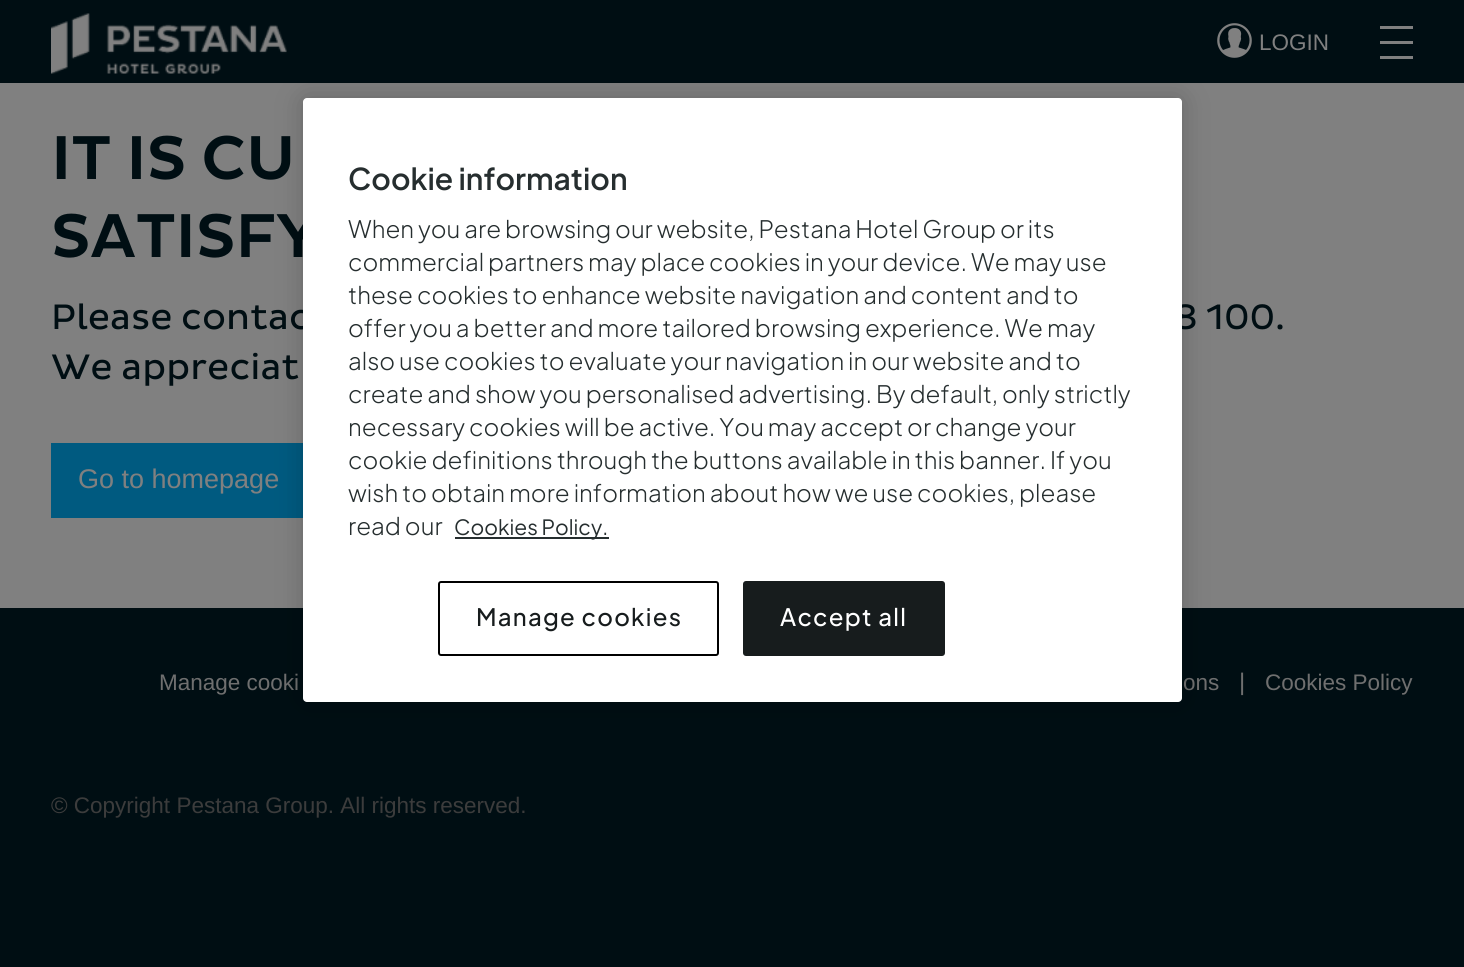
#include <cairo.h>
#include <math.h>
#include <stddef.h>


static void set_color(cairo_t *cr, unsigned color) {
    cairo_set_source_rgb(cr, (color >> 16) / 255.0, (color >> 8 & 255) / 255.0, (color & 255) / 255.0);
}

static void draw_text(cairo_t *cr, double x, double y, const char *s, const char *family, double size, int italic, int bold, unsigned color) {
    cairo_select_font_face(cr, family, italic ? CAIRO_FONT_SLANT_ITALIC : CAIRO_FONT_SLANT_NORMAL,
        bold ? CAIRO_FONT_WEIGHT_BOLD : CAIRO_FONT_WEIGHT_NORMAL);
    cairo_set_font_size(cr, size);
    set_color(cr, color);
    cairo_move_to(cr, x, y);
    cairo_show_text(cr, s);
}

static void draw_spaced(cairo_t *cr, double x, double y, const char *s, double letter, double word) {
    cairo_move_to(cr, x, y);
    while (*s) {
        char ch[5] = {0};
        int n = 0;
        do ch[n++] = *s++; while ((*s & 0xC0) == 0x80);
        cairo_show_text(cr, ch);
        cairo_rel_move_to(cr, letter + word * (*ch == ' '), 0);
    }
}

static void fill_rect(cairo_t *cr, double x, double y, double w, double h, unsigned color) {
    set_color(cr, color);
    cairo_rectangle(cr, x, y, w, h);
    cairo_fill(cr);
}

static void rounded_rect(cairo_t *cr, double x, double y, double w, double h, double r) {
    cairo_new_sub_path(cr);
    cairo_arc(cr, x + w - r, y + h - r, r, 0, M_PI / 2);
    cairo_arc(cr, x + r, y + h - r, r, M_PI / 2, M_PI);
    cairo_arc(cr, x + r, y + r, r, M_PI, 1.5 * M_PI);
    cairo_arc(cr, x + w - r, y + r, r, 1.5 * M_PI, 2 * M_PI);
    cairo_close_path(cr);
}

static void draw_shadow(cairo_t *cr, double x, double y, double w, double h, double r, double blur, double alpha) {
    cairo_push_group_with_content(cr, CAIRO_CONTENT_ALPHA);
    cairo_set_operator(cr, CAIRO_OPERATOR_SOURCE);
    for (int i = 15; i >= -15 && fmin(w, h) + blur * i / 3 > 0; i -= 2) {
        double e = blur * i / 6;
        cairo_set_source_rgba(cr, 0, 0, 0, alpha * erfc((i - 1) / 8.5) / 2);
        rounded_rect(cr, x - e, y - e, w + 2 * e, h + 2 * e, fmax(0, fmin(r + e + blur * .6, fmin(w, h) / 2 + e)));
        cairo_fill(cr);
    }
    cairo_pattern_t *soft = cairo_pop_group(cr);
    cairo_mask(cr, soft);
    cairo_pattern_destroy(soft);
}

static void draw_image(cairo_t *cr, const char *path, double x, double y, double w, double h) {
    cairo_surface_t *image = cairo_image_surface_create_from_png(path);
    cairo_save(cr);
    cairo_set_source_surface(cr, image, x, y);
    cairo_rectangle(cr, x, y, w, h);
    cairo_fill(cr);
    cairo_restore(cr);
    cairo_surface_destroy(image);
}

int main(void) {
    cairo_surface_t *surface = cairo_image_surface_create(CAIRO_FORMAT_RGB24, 1464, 967);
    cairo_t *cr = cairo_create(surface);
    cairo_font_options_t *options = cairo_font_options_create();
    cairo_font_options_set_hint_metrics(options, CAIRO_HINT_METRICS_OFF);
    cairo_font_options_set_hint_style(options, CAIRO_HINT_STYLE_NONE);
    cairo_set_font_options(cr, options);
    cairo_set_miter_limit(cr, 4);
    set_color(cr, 0x000E13);
    cairo_paint(cr);
    fill_rect(cr, 0, 83, 1464, 525, 0x808080);
    draw_image(cr, "assets/img1.png", 51, 13, 236, 61);
    draw_image(cr, "assets/img2.png", 1217, 23, 35, 35);
    draw_text(cr, 1259, 50, "LOGIN", "Liberation Sans", 22.5, 0, 0, 0x808080);
    fill_rect(cr, 1380, 26, 33, 3, 0x808080);
    fill_rect(cr, 1380, 56, 33, 3, 0x808080);
    fill_rect(cr, 1380, 41, 33, 3, 0x808080);
    draw_text(cr, 51, 179, "IT IS CU", "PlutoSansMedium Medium", 63, 0, 0, 0x000E13);
    draw_text(cr, 51, 257, "SATISFY", "PlutoSansMedium Medium", 63, 0, 0, 0x000E13);
    draw_text(cr, 51, 329, "Please contac", "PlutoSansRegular", 36, 0, 0, 0x000E13);
    draw_text(cr, 1173, 329, "8 100.", "PlutoSansRegular", 36, 0, 0, 0x000E13);
    draw_text(cr, 51, 379, "We appreciat", "PlutoSansRegular", 36, 0, 0, 0x000E13);
    fill_rect(cr, 51, 443, 252, 75, 0x005A80);
    draw_text(cr, 78, 488, "Go to homepage", "Liberation Sans", 27, 0, 0, 0x808080);
    draw_text(cr, 159, 690, "Manage cooki", "Liberation Sans", 22.5, 0, 0, 0x6F6F6F);
    draw_text(cr, 1183, 690, "ons", "Liberation Sans", 22.5, 0, 0, 0x6F6F6F);
    draw_text(cr, 1239, 690, "|", "Liberation Sans", 24, 0, 0, 0x6F6F6F);
    draw_text(cr, 1265, 690, "Cookies Policy", "Liberation Sans", 22.5, 0, 0, 0x6F6F6F);
    draw_text(cr, 51, 813, "© Copyright Pestana Group. All rights reserved.", "Liberation Sans", 22.5, 0, 0, 0x3C3C3C);
    set_color(cr, 0x000000);
    draw_shadow(cr, 303, 98, 879, 604, 4, 13.5, 0.2);
    set_color(cr, 0xFFFFFF);
    rounded_rect(cr, 303, 98, 879, 604, 4);
    cairo_fill(cr);
    draw_text(cr, 348, 190, "Cookie information", "Plus Jakarta Sans SemiBold", 30, 0, 0, 0x262E2F);
    draw_text(cr, 348, 238, "When you are browsing our website, Pestana Hotel Group or its", "Plus Jakarta Sans Light", 24, 0, 0, 0x262E2F);
    draw_text(cr, 348, 271, "commercial partners may place cookies in your device. We may use", "Plus Jakarta Sans Light", 24, 0, 0, 0x262E2F);
    draw_text(cr, 348, 304, "these cookies to enhance website navigation and content and to", "Plus Jakarta Sans Light", 24, 0, 0, 0x262E2F);
    draw_text(cr, 348, 337, "offer you a better and more tailored browsing experience. We may", "Plus Jakarta Sans Light", 24, 0, 0, 0x262E2F);
    draw_text(cr, 348, 370, "also use cookies to evaluate your navigation in our website and to", "Plus Jakarta Sans Light", 24, 0, 0, 0x262E2F);
    draw_text(cr, 348, 403, "create and show you personalised advertising. By default, only strictly", "Plus Jakarta Sans Light", 24, 0, 0, 0x262E2F);
    draw_text(cr, 348, 436, "necessary cookies will be active. You may accept or change your", "Plus Jakarta Sans Light", 24, 0, 0, 0x262E2F);
    draw_text(cr, 348, 469, "cookie definitions through the buttons available in this banner. If you", "Plus Jakarta Sans Light", 24, 0, 0, 0x262E2F);
    draw_text(cr, 348, 502, "wish to obtain more information about how we use cookies, please", "Plus Jakarta Sans Light", 24, 0, 0, 0x262E2F);
    draw_text(cr, 348, 535, "read our", "Plus Jakarta Sans Light", 24, 0, 0, 0x262E2F);
    fill_rect(cr, 455, 537, 154, 2, 0x262E2F);
    draw_text(cr, 454, 535, "Cookies Policy.", "Plus Jakarta Sans", 21, 0, 0, 0x262E2F);
    rounded_rect(cr, 439, 582, 279, 73, 2);
    set_color(cr, 0x000000);
    cairo_stroke(cr);
    cairo_select_font_face(cr, "Plus Jakarta Sans Medium", CAIRO_FONT_SLANT_NORMAL, CAIRO_FONT_WEIGHT_NORMAL);
    cairo_set_font_size(cr, 24);
    set_color(cr, 0x171C1D);
    draw_spaced(cr, 476, 626, "Manage cookies", 1.25, 0);
    rounded_rect(cr, 744, 582, 200, 73, 2);
    cairo_fill_preserve(cr);
    cairo_stroke(cr);
    set_color(cr, 0xFFFFFF);
    draw_spaced(cr, 780, 626, "Accept all", 1.25, 0);
    cairo_surface_write_to_png(surface, "output.png");
    cairo_font_options_destroy(options);
    cairo_destroy(cr);
    cairo_surface_destroy(surface);
    return 0;
}
